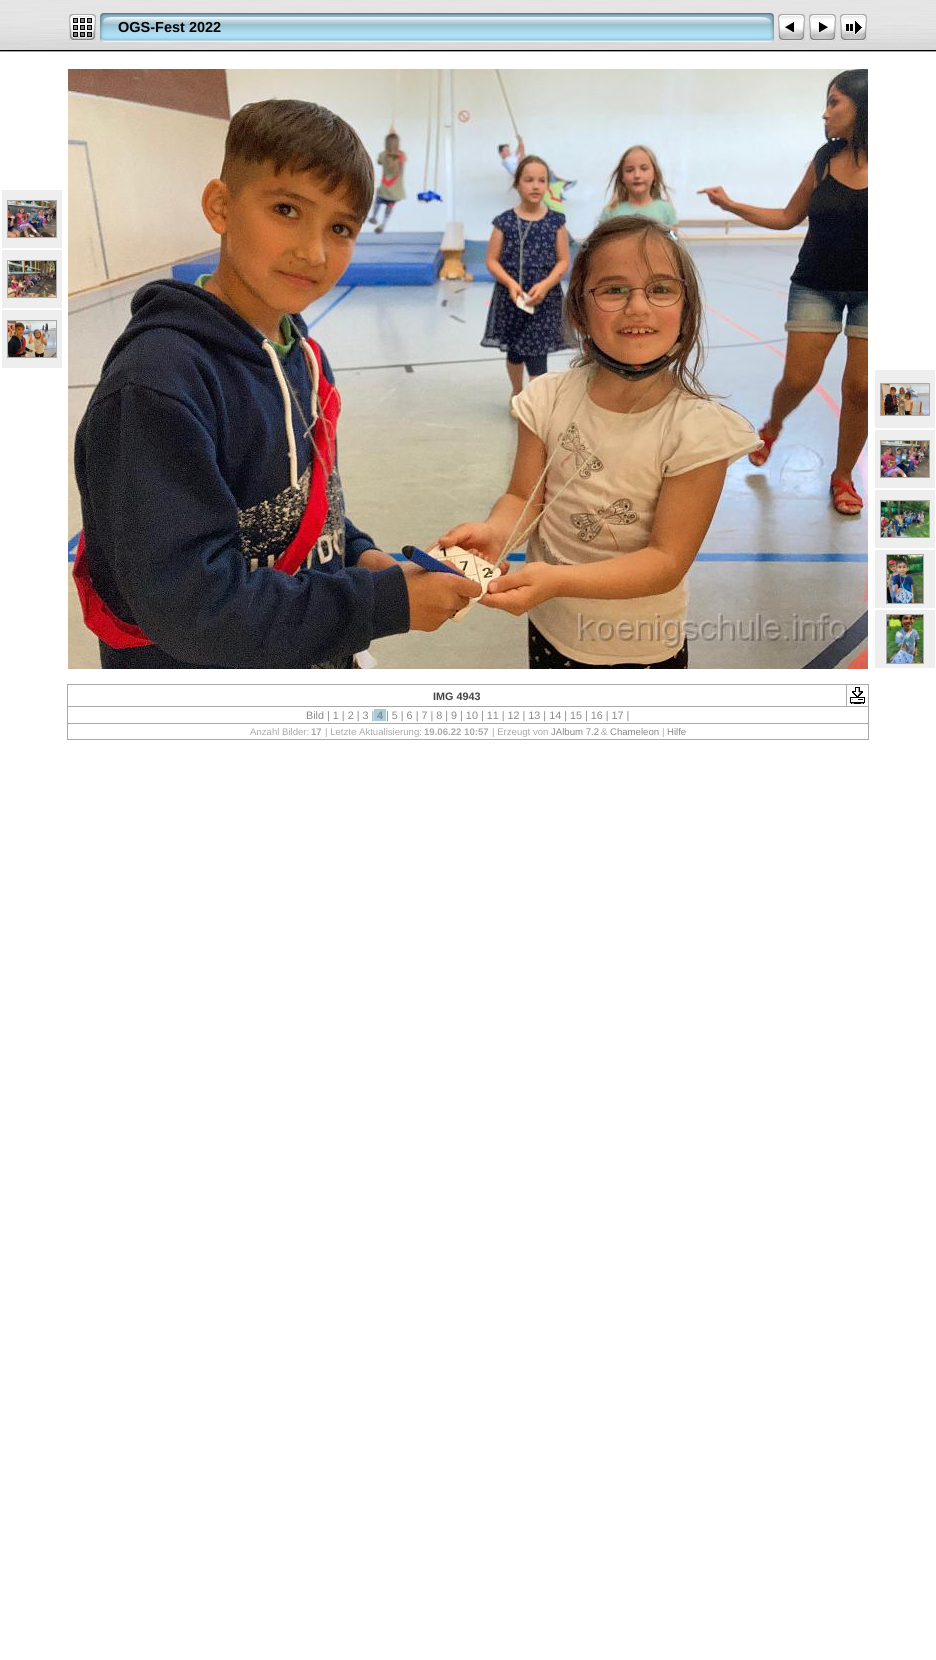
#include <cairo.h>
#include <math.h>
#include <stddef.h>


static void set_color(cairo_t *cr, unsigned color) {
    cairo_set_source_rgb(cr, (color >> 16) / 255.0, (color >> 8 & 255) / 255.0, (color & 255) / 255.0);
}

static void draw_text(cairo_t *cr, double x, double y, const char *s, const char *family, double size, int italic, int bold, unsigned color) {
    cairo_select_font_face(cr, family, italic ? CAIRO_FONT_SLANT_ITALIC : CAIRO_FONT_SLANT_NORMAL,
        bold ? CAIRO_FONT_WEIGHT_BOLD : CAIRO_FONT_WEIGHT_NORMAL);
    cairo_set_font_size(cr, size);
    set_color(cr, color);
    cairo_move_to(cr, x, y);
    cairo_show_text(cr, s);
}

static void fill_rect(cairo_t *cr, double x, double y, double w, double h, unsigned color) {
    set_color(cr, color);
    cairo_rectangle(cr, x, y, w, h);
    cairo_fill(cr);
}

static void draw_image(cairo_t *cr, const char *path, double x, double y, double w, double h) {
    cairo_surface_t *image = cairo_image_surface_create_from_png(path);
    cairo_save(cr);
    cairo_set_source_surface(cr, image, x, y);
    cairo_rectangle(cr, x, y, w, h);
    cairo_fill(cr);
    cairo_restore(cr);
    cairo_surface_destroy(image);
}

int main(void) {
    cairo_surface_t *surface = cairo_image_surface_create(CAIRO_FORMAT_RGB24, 936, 1660);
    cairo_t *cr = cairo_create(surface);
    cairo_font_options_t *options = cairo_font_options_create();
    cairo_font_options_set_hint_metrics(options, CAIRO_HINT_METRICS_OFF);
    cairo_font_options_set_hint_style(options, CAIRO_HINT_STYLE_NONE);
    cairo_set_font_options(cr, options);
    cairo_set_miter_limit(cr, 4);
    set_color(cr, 0xFFFFFF);
    cairo_paint(cr);
    draw_image(cr, "assets/img1.png", 0, 0, 936, 52);
    draw_image(cr, "assets/img2.png", 69, 14, 27, 27);
    draw_image(cr, "assets/img3.png", 100, 13, 18, 29);
    draw_image(cr, "assets/img4.png", 118, 13, 638, 29);
    draw_text(cr, 118, 32, "OGS-Fest 2022", "Liberation Sans", 14.5, 0, 1, 0x000000);
    draw_image(cr, "assets/img5.png", 756, 13, 18, 29);
    draw_image(cr, "assets/img6.png", 778, 14, 27, 27);
    draw_image(cr, "assets/img7.png", 809, 14, 27, 27);
    draw_image(cr, "assets/img8.png", 840, 14, 27, 27);
    fill_rect(cr, 2, 190, 60, 58, 0xEEEEEE);
    cairo_rectangle(cr, 7.5, 200.5, 49, 37);
    set_color(cr, 0xAAAAAA);
    cairo_set_line_width(cr, 1);
    cairo_stroke(cr);
    draw_image(cr, "assets/img9.png", 8, 201, 48, 36);
    fill_rect(cr, 2, 250, 60, 58, 0xEEEEEE);
    cairo_rectangle(cr, 7.5, 260.5, 49, 37);
    set_color(cr, 0xAAAAAA);
    cairo_stroke(cr);
    draw_image(cr, "assets/img10.png", 8, 261, 48, 36);
    fill_rect(cr, 2, 310, 60, 58, 0xEEEEEE);
    cairo_rectangle(cr, 7.5, 320.5, 49, 37);
    set_color(cr, 0xAAAAAA);
    cairo_stroke(cr);
    draw_image(cr, "assets/img11.png", 8, 321, 48, 36);
    draw_image(cr, "assets/img12.png", 68, 69, 800, 600);
    fill_rect(cr, 875, 370, 60, 58, 0xEEEEEE);
    cairo_rectangle(cr, 880.5, 383.5, 49, 32);
    set_color(cr, 0xAAAAAA);
    cairo_stroke(cr);
    draw_image(cr, "assets/img13.png", 881, 384, 48, 31);
    fill_rect(cr, 875, 430, 60, 58, 0xEEEEEE);
    cairo_rectangle(cr, 880.5, 440.5, 49, 37);
    set_color(cr, 0xAAAAAA);
    cairo_stroke(cr);
    draw_image(cr, "assets/img14.png", 881, 441, 48, 36);
    fill_rect(cr, 875, 490, 60, 58, 0xEEEEEE);
    cairo_rectangle(cr, 880.5, 500.5, 49, 37);
    set_color(cr, 0xAAAAAA);
    cairo_stroke(cr);
    draw_image(cr, "assets/img15.png", 881, 501, 48, 36);
    fill_rect(cr, 875, 550, 60, 58, 0xEEEEEE);
    cairo_rectangle(cr, 886.5, 554.5, 37, 49);
    set_color(cr, 0xAAAAAA);
    cairo_stroke(cr);
    draw_image(cr, "assets/img16.png", 887, 555, 36, 48);
    fill_rect(cr, 875, 610, 60, 58, 0xEEEEEE);
    cairo_rectangle(cr, 886.5, 614.5, 37, 49);
    set_color(cr, 0xAAAAAA);
    cairo_stroke(cr);
    draw_image(cr, "assets/img17.png", 887, 615, 36, 48);
    fill_rect(cr, 67, 684, 802, 1, 0xAAAAAA);
    fill_rect(cr, 868, 684, 1, 56, 0xAAAAAA);
    fill_rect(cr, 67, 739, 802, 1, 0xAAAAAA);
    fill_rect(cr, 67, 684, 1, 56, 0xAAAAAA);
    draw_text(cr, 433, 700, "IMG 4943", "Liberation Sans", 10.8, 0, 1, 0x444444);
    fill_rect(cr, 67, 706, 802, 1, 0xAAAAAA);
    fill_rect(cr, 846, 684, 1, 23, 0xAAAAAA);
    draw_image(cr, "assets/img18.png", 850, 687, 15, 17);
    draw_text(cr, 306, 719, "Bild | 1 | 2 | 3 |", "Liberation Sans", 10.8, 0, 0, 0x888888);
    fill_rect(cr, 374, 709, 12, 12, 0xA4CEE0);
    draw_text(cr, 377, 719, "4", "Liberation Sans", 10.8, 0, 1, 0x888888);
    draw_text(cr, 386, 719, "| 5 | 6 | 7 | 8 | 9 | 10 | 11 | 12 | 13 | 14 | 15 | 16 | 17 |", "Liberation Sans", 10.8, 0, 0, 0x888888);
    fill_rect(cr, 67, 723, 802, 1, 0xAAAAAA);
    draw_text(cr, 250, 735, "Anzahl Bilder:", "Liberation Sans", 9.6, 0, 0, 0xAAAAAA);
    draw_text(cr, 311, 735, "17", "Liberation Sans", 9.6, 0, 1, 0xAAAAAA);
    draw_text(cr, 325, 735, "| Letzte Aktualisierung:", "Liberation Sans", 9.6, 0, 0, 0xAAAAAA);
    draw_text(cr, 424, 735, "19.06.22 10:57", "Liberation Sans", 9.6, 0, 1, 0xAAAAAA);
    draw_text(cr, 492, 735, "| Erzeugt von", "Liberation Sans", 9.6, 0, 0, 0xAAAAAA);
    draw_text(cr, 551, 735, "JAlbum 7.2", "Liberation Sans", 9.6, 0, 0, 0x888888);
    draw_text(cr, 601, 735, "&", "Liberation Sans", 9.6, 0, 0, 0xAAAAAA);
    draw_text(cr, 610, 735, "Chameleon", "Liberation Sans", 9.6, 0, 0, 0x888888);
    draw_text(cr, 662, 735, "|", "Liberation Sans", 9.6, 0, 0, 0xAAAAAA);
    draw_text(cr, 667, 735, "Hilfe", "Liberation Sans", 9.6, 0, 0, 0x888888);
    cairo_surface_write_to_png(surface, "output.png");
    cairo_font_options_destroy(options);
    cairo_destroy(cr);
    cairo_surface_destroy(surface);
    return 0;
}
